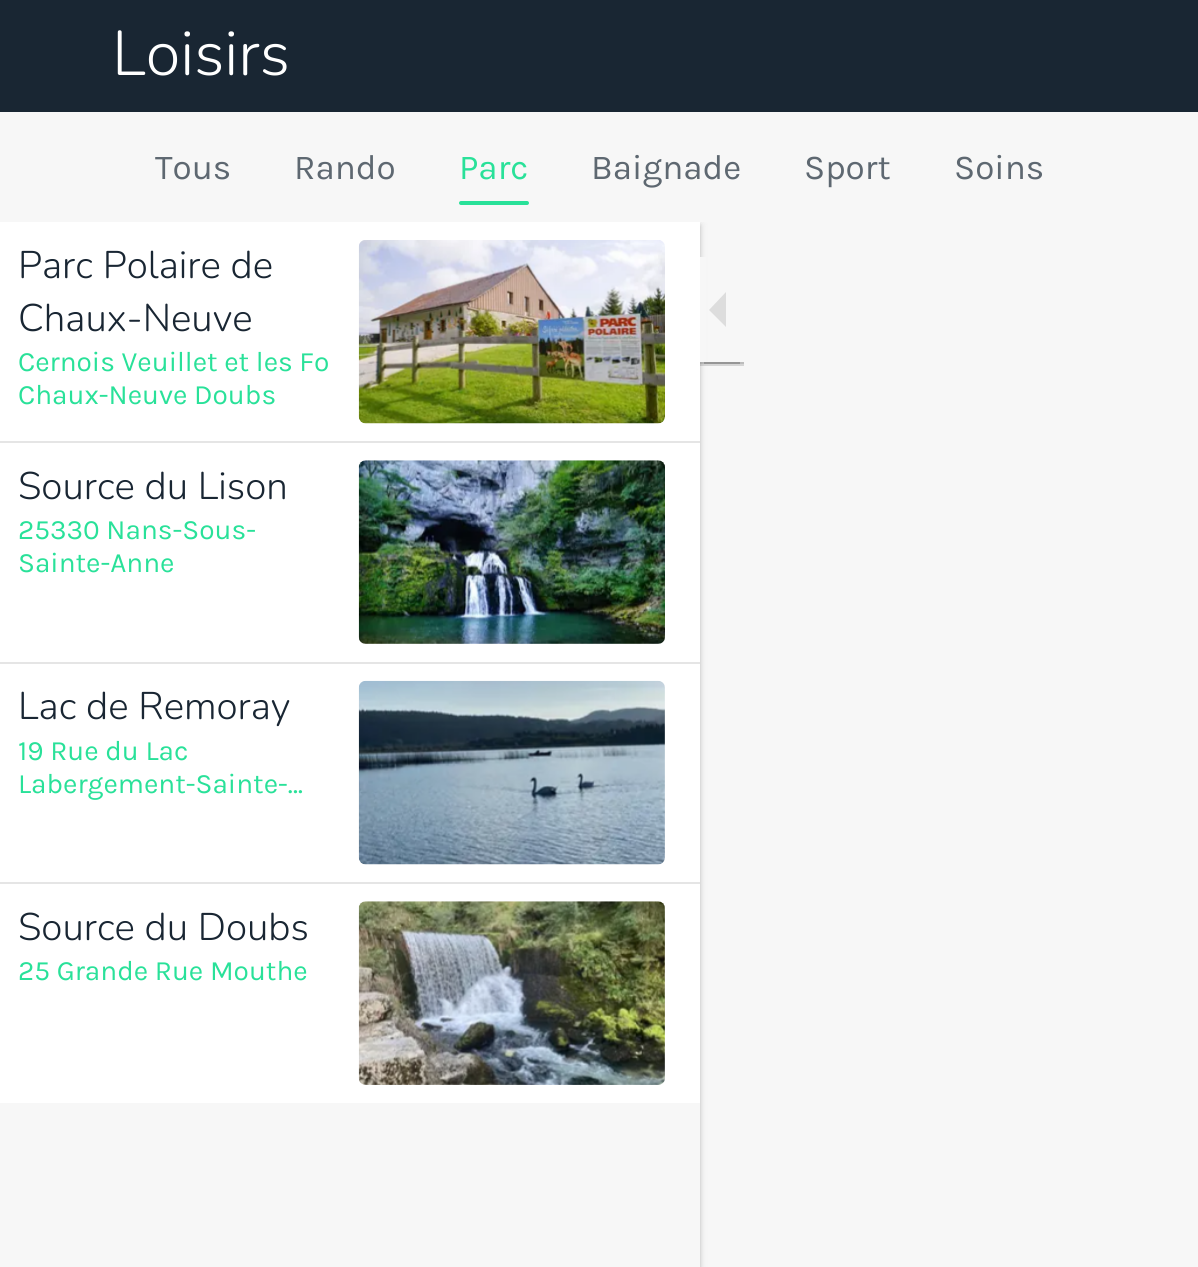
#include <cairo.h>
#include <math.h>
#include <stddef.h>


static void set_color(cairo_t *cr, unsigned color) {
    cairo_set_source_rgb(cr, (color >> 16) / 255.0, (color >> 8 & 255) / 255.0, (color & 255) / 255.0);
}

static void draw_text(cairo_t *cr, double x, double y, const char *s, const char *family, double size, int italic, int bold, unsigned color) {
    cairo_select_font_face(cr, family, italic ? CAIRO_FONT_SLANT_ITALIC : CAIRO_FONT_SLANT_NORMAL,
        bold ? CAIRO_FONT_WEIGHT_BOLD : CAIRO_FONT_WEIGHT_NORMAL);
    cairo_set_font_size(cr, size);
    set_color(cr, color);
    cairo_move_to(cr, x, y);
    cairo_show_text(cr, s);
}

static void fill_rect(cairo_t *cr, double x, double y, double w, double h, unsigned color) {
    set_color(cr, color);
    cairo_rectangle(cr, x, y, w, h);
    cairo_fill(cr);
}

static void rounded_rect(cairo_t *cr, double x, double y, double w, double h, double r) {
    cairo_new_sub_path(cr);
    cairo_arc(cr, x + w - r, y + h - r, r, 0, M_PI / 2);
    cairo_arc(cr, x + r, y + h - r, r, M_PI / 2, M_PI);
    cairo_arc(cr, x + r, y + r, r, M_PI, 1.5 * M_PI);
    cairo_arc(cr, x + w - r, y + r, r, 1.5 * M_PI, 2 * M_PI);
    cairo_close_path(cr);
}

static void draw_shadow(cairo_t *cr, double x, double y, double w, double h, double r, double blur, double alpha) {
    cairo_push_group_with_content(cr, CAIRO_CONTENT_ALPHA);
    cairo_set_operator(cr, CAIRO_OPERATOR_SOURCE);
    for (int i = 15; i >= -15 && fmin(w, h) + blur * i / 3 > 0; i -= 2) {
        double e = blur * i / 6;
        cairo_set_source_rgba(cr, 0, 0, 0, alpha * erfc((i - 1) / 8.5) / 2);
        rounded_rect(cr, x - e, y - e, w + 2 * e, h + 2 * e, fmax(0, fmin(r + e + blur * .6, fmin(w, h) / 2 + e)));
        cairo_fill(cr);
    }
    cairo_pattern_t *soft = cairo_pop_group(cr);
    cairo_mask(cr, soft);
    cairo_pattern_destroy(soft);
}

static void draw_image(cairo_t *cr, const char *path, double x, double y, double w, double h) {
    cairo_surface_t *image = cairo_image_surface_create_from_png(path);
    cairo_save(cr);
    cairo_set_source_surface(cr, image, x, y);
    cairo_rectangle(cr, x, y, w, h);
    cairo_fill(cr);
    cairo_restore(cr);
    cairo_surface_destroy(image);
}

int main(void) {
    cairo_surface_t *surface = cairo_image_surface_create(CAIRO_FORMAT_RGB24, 1198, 1267);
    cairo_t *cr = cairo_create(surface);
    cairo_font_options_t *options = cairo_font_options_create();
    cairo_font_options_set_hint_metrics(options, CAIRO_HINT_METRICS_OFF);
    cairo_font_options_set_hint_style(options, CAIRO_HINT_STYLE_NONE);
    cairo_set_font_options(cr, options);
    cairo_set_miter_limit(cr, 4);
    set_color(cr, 0xF7F7F7);
    cairo_paint(cr);
    fill_rect(cr, 0, 0, 1198, 112, 0x192633);
    draw_text(cr, 112, 75, "Loisirs", "Nunito Light", 63, 0, 0, 0xFFFFFF);
    draw_text(cr, 155, 179, "Tous", "Karla", 35, 0, 0, 0x5E6871);
    draw_text(cr, 294, 179, "Rando", "Karla", 35, 0, 0, 0x5E6871);
    draw_text(cr, 459, 179, "Parc", "Karla", 35, 0, 0, 0x29E199);
    rounded_rect(cr, 459, 201, 70, 4, 2);
    cairo_fill(cr);
    draw_text(cr, 591, 179, "Baignade", "Karla", 35, 0, 0, 0x5E6871);
    draw_text(cr, 804, 179, "Sport", "Karla", 35, 0, 0, 0x5E6871);
    draw_text(cr, 954, 179, "Soins", "Karla", 35, 0, 0, 0x5E6871);
    cairo_save(cr);
    cairo_rectangle(cr, 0, 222, 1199, 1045);
    cairo_clip(cr);
    set_color(cr, 0x000000);
    draw_shadow(cr, 0, 224, 700, 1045, 0, 4.5, 0.12);
    cairo_restore(cr);
    set_color(cr, 0x000000);
    draw_shadow(cr, 0, 226, 700, 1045, 0, 2, 0.14);
    fill_rect(cr, 0, 1103, 700, 164, 0xF7F7F7);
    fill_rect(cr, 0, 222, 700, 219, 0xFFFFFF);
    draw_text(cr, 18, 278, "Parc Polaire de", "Nunito Light", 38.5, 0, 0, 0x192633);
    draw_text(cr, 18, 331, "Chaux-Neuve", "Nunito Light", 38.5, 0, 0, 0x192633);
    draw_text(cr, 18, 371, "Cernois Veuillet et les Fo", "Karla", 28, 0, 0, 0x29E199);
    draw_text(cr, 18, 404, "Chaux-Neuve Doubs", "Karla", 28, 0, 0, 0x29E199);
    draw_image(cr, "assets/img1.png", 358, 240, 307, 184);
    fill_rect(cr, 0, 443, 700, 219, 0xFFFFFF);
    fill_rect(cr, 0, 441, 700, 2, 0xE5E5E5);
    draw_text(cr, 18, 499, "Source du Lison", "Nunito Light", 38.5, 0, 0, 0x192633);
    draw_text(cr, 18, 539, "25330 Nans-Sous-", "Karla", 28, 0, 0, 0x29E199);
    draw_text(cr, 18, 572, "Sainte-Anne", "Karla", 28, 0, 0, 0x29E199);
    draw_image(cr, "assets/img2.png", 358, 460, 307, 184);
    fill_rect(cr, 0, 664, 700, 218, 0xFFFFFF);
    fill_rect(cr, 0, 662, 700, 2, 0xE5E5E5);
    draw_text(cr, 18, 719, "Lac de Remoray", "Nunito Light", 38.5, 0, 0, 0x192633);
    draw_text(cr, 18, 760, "19 Rue du Lac", "Karla", 28, 0, 0, 0x29E199);
    draw_text(cr, 18, 793, "Labergement-Sainte-…", "Karla", 28, 0, 0, 0x29E199);
    draw_image(cr, "assets/img3.png", 358, 680, 307, 185);
    fill_rect(cr, 0, 884, 700, 219, 0xFFFFFF);
    fill_rect(cr, 0, 882, 700, 2, 0xE5E5E5);
    draw_text(cr, 18, 940, "Source du Doubs", "Nunito Light", 38.5, 0, 0, 0x192633);
    draw_text(cr, 18, 980, "25 Grande Rue Mouthe", "Karla", 28, 0, 0, 0x29E199);
    draw_image(cr, "assets/img4.png", 358, 901, 307, 184);
    cairo_set_source_rgba(cr, 0, 0, 0, 0.12);
    cairo_new_path(cr);
    cairo_move_to(cr, 700, 362);
    cairo_line_to(cr, 700, 364);
    cairo_line_to(cr, 744, 364);
    cairo_line_to(cr, 744, 259);
    cairo_line_to(cr, 744, 362);
    cairo_close_path(cr);
    cairo_fill(cr);
    cairo_set_source_rgba(cr, 0, 0, 0, 0.14);
    cairo_new_path(cr);
    cairo_move_to(cr, 700, 362);
    cairo_line_to(cr, 700, 366);
    cairo_line_to(cr, 744, 366);
    cairo_line_to(cr, 744, 261);
    cairo_line_to(cr, 744, 362);
    cairo_close_path(cr);
    cairo_fill(cr);
    cairo_set_source_rgba(cr, 0, 0, 0, 0.2);
    cairo_rectangle(cr, 704, 362, 36, 2);
    cairo_fill(cr);
    fill_rect(cr, 700, 257, 6, 105, 0xF7F7F7);
    set_color(cr, 0xDDDDDD);
    cairo_new_path(cr);
    cairo_move_to(cr, 726, 292);
    cairo_line_to(cr, 726, 327);
    cairo_line_to(cr, 709, 310);
    cairo_close_path(cr);
    cairo_fill(cr);
    cairo_surface_write_to_png(surface, "output.png");
    cairo_font_options_destroy(options);
    cairo_destroy(cr);
    cairo_surface_destroy(surface);
    return 0;
}
